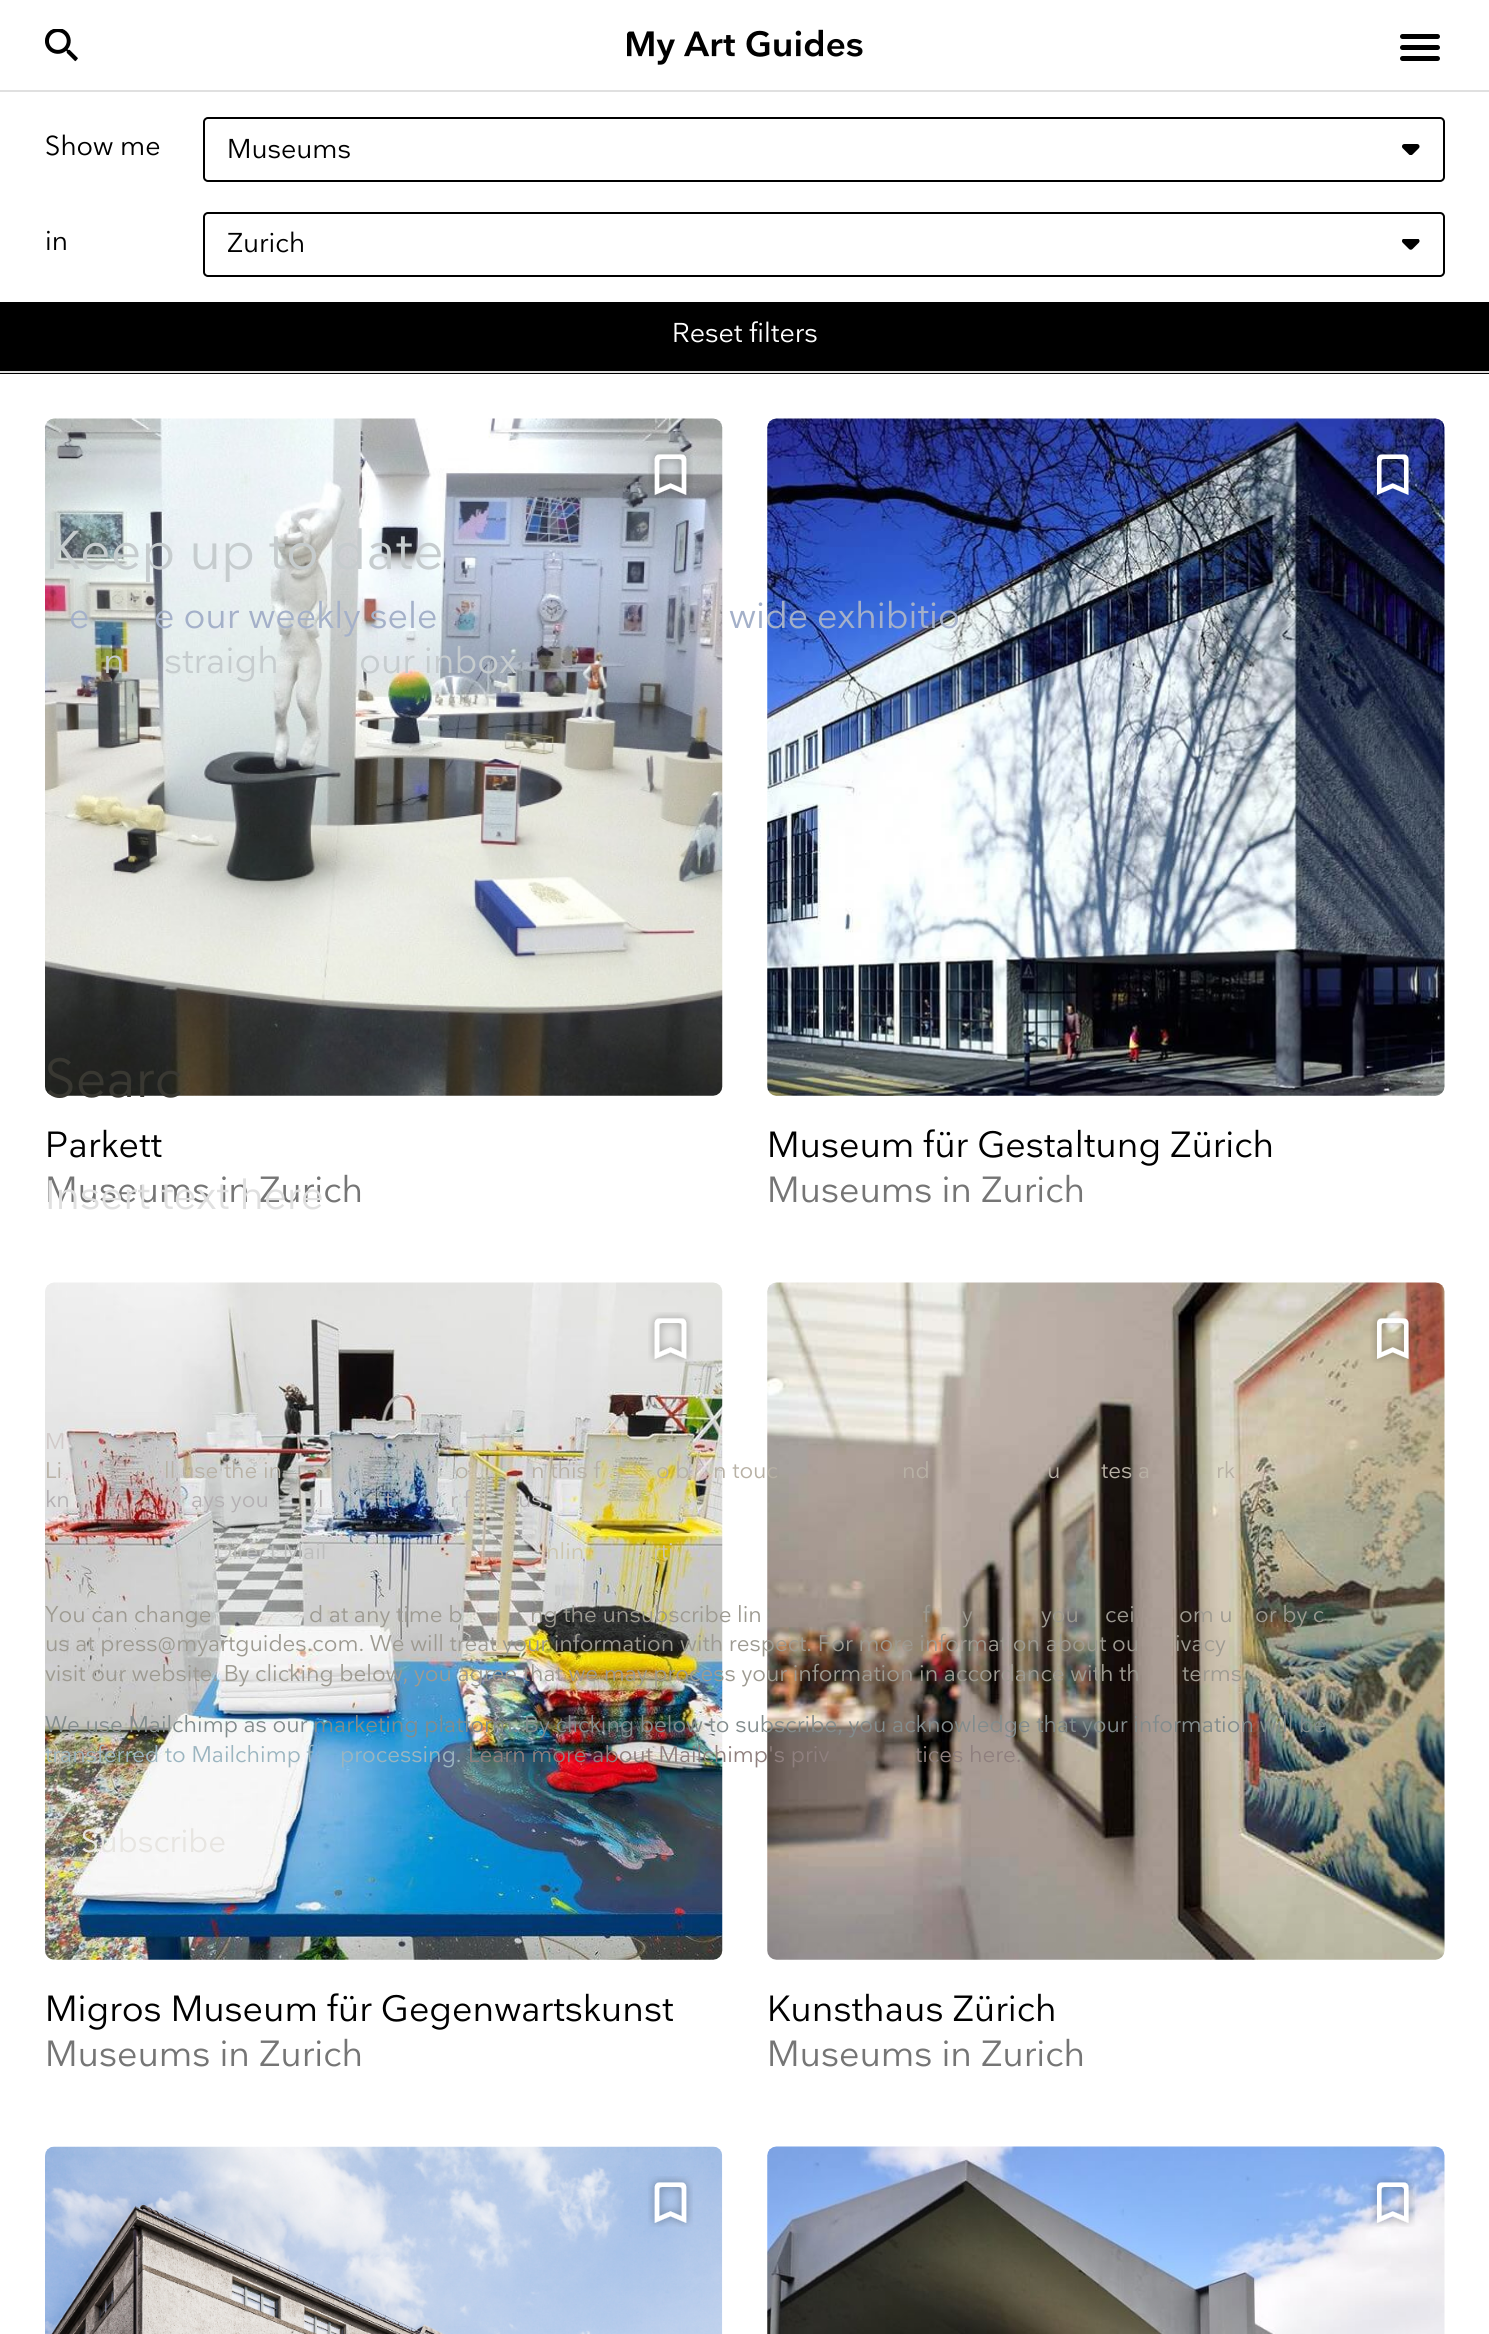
#include <cairo.h>
#include <math.h>
#include <stddef.h>


static void set_color(cairo_t *cr, unsigned color) {
    cairo_set_source_rgb(cr, (color >> 16) / 255.0, (color >> 8 & 255) / 255.0, (color & 255) / 255.0);
}

static void draw_text(cairo_t *cr, double x, double y, const char *s, const char *family, double size, int italic, int bold, unsigned color) {
    cairo_select_font_face(cr, family, italic ? CAIRO_FONT_SLANT_ITALIC : CAIRO_FONT_SLANT_NORMAL,
        bold ? CAIRO_FONT_WEIGHT_BOLD : CAIRO_FONT_WEIGHT_NORMAL);
    cairo_set_font_size(cr, size);
    set_color(cr, color);
    cairo_move_to(cr, x, y);
    cairo_show_text(cr, s);
}

static void fill_rect(cairo_t *cr, double x, double y, double w, double h, unsigned color) {
    set_color(cr, color);
    cairo_rectangle(cr, x, y, w, h);
    cairo_fill(cr);
}

static void rounded_rect(cairo_t *cr, double x, double y, double w, double h, double r) {
    cairo_new_sub_path(cr);
    cairo_arc(cr, x + w - r, y + h - r, r, 0, M_PI / 2);
    cairo_arc(cr, x + r, y + h - r, r, M_PI / 2, M_PI);
    cairo_arc(cr, x + r, y + r, r, M_PI, 1.5 * M_PI);
    cairo_arc(cr, x + w - r, y + r, r, 1.5 * M_PI, 2 * M_PI);
    cairo_close_path(cr);
}

static void draw_image(cairo_t *cr, const char *path, double x, double y, double w, double h) {
    cairo_surface_t *image = cairo_image_surface_create_from_png(path);
    cairo_save(cr);
    cairo_set_source_surface(cr, image, x, y);
    cairo_rectangle(cr, x, y, w, h);
    cairo_fill(cr);
    cairo_restore(cr);
    cairo_surface_destroy(image);
}

int main(void) {
    cairo_surface_t *surface = cairo_image_surface_create(CAIRO_FORMAT_RGB24, 1489, 2334);
    cairo_t *cr = cairo_create(surface);
    cairo_font_options_t *options = cairo_font_options_create();
    cairo_font_options_set_hint_metrics(options, CAIRO_HINT_METRICS_OFF);
    cairo_font_options_set_hint_style(options, CAIRO_HINT_STYLE_NONE);
    cairo_set_font_options(cr, options);
    cairo_set_miter_limit(cr, 4);
    set_color(cr, 0xFFFFFF);
    cairo_paint(cr);
    fill_rect(cr, 0, 90, 1489, 2, 0xE0E0E0);
    draw_image(cr, "assets/img1.png", 45, 29, 33, 33);
    draw_image(cr, "assets/img2.png", 627, 29, 236, 36);
    set_color(cr, 0x000000);
    rounded_rect(cr, 1400, 34, 40, 5, 2.5);
    cairo_fill(cr);
    rounded_rect(cr, 1400, 45, 40, 5, 2.5);
    cairo_fill(cr);
    rounded_rect(cr, 1400, 56, 40, 5, 2.5);
    cairo_fill(cr);
    draw_text(cr, 45, 155, "Show me", "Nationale", 27, 0, 0, 0x000000);
    draw_image(cr, "assets/img3.png", 1402, 144, 18, 11);
    rounded_rect(cr, 204, 118, 1240, 63, 4);
    cairo_stroke(cr);
    draw_text(cr, 227, 158, "Museums", "Nationale", 27, 0, 0, 0x000000);
    draw_text(cr, 45, 250, "in", "Nationale", 27, 0, 0, 0x000000);
    draw_image(cr, "assets/img4.png", 1402, 239, 18, 11);
    rounded_rect(cr, 204, 213, 1240, 63, 4);
    cairo_stroke(cr);
    draw_text(cr, 227, 252, "Zurich", "Nationale", 27, 0, 0, 0x000000);
    fill_rect(cr, 0, 302, 1489, 72, 0x000000);
    fill_rect(cr, 0, 371, 1489, 2, 0xE0E0E0);
    draw_text(cr, 672, 342, "Reset filters", "Nationale", 27, 0, 0, 0xFFFFFF);
    draw_image(cr, "assets/img5.png", 44, 418, 679, 678);
    draw_image(cr, "assets/img6.png", 648, 448, 45, 51);
    draw_text(cr, 45, 1157, "Parkett", "Nationale", 36, 0, 0, 0x000000);
    draw_text(cr, 45, 1202, "Museums in Zurich", "Nationale", 36, 0, 0, 0x757575);
    draw_image(cr, "assets/img7.png", 767, 418, 678, 678);
    draw_image(cr, "assets/img8.png", 1370, 448, 45, 51);
    draw_text(cr, 767, 1157, "Museum für Gestaltung Zürich", "Nationale", 36, 0, 0, 0x000000);
    draw_text(cr, 767, 1202, "Museums in Zurich", "Nationale", 36, 0, 0, 0x757575);
    draw_image(cr, "assets/img9.png", 45, 1282, 678, 678);
    draw_image(cr, "assets/img10.png", 648, 1312, 45, 51);
    draw_text(cr, 45, 2021, "Migros Museum für Gegenwartskunst", "Nationale", 36, 0, 0, 0x000000);
    draw_text(cr, 45, 2066, "Museums in Zurich", "Nationale", 36, 0, 0, 0x757575);
    draw_image(cr, "assets/img11.png", 767, 1282, 678, 678);
    draw_image(cr, "assets/img12.png", 1370, 1312, 45, 51);
    draw_text(cr, 767, 2021, "Kunsthaus Zürich", "Nationale", 36, 0, 0, 0x000000);
    draw_text(cr, 767, 2066, "Museums in Zurich", "Nationale", 36, 0, 0, 0x757575);
    draw_image(cr, "assets/img13.png", 45, 2146, 678, 188);
    draw_image(cr, "assets/img14.png", 648, 2176, 45, 51);
    draw_image(cr, "assets/img15.png", 767, 2146, 678, 188);
    draw_image(cr, "assets/img16.png", 1370, 2176, 45, 51);
    draw_text(cr, 45, 569, "Keep up to date", "Nationale", 54, 0, 0, 0xC6CCCE);
    draw_text(cr, 69, 628, "e", "Nationale", 36, 0, 0, 0xA4B0C9);
    draw_text(cr, 154, 628, "e our weekly sele", "Nationale", 36, 0, 0, 0xA4B0C9);
    draw_text(cr, 729, 628, "wide exhibitio", "Nationale", 36, 0, 0, 0xA4B0C9);
    draw_text(cr, 103, 673, "n", "Nationale", 36, 0, 0, 0xC6CCCE);
    draw_text(cr, 164, 673, "straigh", "Nationale", 36, 0, 0, 0xC6CCCE);
    draw_text(cr, 359, 673, "our inbox", "Nationale", 36, 0, 0, 0xC6CCCE);
    draw_text(cr, 45, 1449, "M", "Nationale", 22.5, 0, 0, 0xD1CAC9);
    draw_text(cr, 45, 1478, "Li", "Nationale", 22.5, 0, 0, 0xB8B1A5);
    draw_text(cr, 164, 1478, "ll use the in", "Nationale", 22.5, 0, 0, 0xB8B1A5);
    draw_text(cr, 455, 1478, "o", "Nationale", 22.5, 0, 0, 0xB8B1A5);
    draw_text(cr, 531, 1478, "n this f", "Nationale", 22.5, 0, 0, 0xB8B1A5);
    draw_text(cr, 656, 1478, "o b", "Nationale", 22.5, 0, 0, 0xB8B1A5);
    draw_text(cr, 713, 1478, "n touc", "Nationale", 22.5, 0, 0, 0xB8B1A5);
    draw_text(cr, 902, 1478, "nd", "Nationale", 22.5, 0, 0, 0xB8B1A5);
    draw_text(cr, 1047, 1478, "u", "Nationale", 22.5, 0, 0, 0xB8B1A5);
    draw_text(cr, 1101, 1478, "tes a", "Nationale", 22.5, 0, 0, 0xB8B1A5);
    draw_text(cr, 1216, 1478, "rk", "Nationale", 22.5, 0, 0, 0xB8B1A5);
    draw_text(cr, 45, 1507, "kn", "Nationale", 22.5, 0, 0, 0xB4B0B3);
    draw_text(cr, 191, 1507, "ays you", "Nationale", 22.5, 0, 0, 0xB4B0B3);
    draw_text(cr, 318, 1507, "l", "Nationale", 22.5, 0, 0, 0xB4B0B3);
    draw_text(cr, 385, 1507, "t", "Nationale", 22.5, 0, 0, 0xB4B0B3);
    draw_text(cr, 450, 1507, "r f", "Nationale", 22.5, 0, 0, 0xB4B0B3);
    draw_text(cr, 518, 1507, "us:", "Nationale", 22.5, 0, 0, 0xB4B0B3);
    draw_text(cr, 215, 1559, "Direct Mail", "Nationale", 22.5, 0, 0, 0xBCBDBC);
    draw_text(cr, 546, 1559, "nlin", "Nationale", 22.5, 0, 0, 0xCCC6AD);
    draw_text(cr, 653, 1559, "rti", "Nationale", 22.5, 0, 0, 0xCCC6AD);
    draw_text(cr, 45, 1622, "You can change", "Nationale", 22.5, 0, 0, 0x9D9A91);
    draw_text(cr, 309, 1622, "d at any time b", "Nationale", 22.5, 0, 0, 0x9D9A91);
    draw_text(cr, 496, 1622, "i", "Nationale", 22.5, 0, 0, 0x9D9A91);
    draw_text(cr, 530, 1622, "ng the unsubscribe lin", "Nationale", 22.5, 0, 0, 0x9D9A91);
    draw_text(cr, 923, 1622, "f", "Nationale", 22.5, 0, 0, 0x9D9A91);
    draw_text(cr, 962, 1622, "y", "Nationale", 22.5, 0, 0, 0x9D9A91);
    draw_text(cr, 1041, 1622, "you", "Nationale", 22.5, 0, 0, 0x9D9A91);
    draw_text(cr, 1105, 1622, "cei", "Nationale", 22.5, 0, 0, 0x9D9A91);
    draw_text(cr, 1179, 1622, "om u", "Nationale", 22.5, 0, 0, 0x9D9A91);
    draw_text(cr, 1255, 1622, "or by c", "Nationale", 22.5, 0, 0, 0x9D9A91);
    draw_text(cr, 45, 1651, "us at press@myartguides.com. We will treat your information with respect. For more information about ou", "Nationale", 22.5, 0, 0, 0x9D9A91);
    draw_text(cr, 1175, 1651, "ivacy", "Nationale", 22.5, 0, 0, 0x9D9A91);
    draw_text(cr, 45, 1681, "visit our website. By clicking below, you agree that we may process your information in accordance with th", "Nationale", 22.5, 0, 0, 0x9D9A91);
    draw_text(cr, 1182, 1681, "terms", "Nationale", 22.5, 0, 0, 0x9D9A91);
    draw_text(cr, 45, 1732, "We use Mailchimp as our marketing platform. By clicking below to subscribe, you acknowledge that your information will be", "Nationale", 22.5, 0, 0, 0x828C8D);
    draw_text(cr, 45, 1762, "transferred to Mailchimp f", "Nationale", 22.5, 0, 0, 0x9BB5C0);
    draw_text(cr, 340, 1762, "processing.", "Nationale", 22.5, 0, 0, 0x9BB5C0);
    draw_text(cr, 468, 1762, "Learn more about Mailchimp's priv", "Nationale", 22.5, 0, 0, 0x8F7F7E);
    draw_text(cr, 915, 1762, "tices here.", "Nationale", 22.5, 0, 0, 0x8F7F7E);
    draw_text(cr, 81, 1852, "Subscribe", "Nationale", 31.5, 0, 0, 0xE7E5E1);
    draw_text(cr, 45, 1097, "Searc", "Nationale", 54, 0, 0, 0x393832);
    draw_text(cr, 45, 1209, "Insert text here", "Nationale", 40.5, 0, 0, 0xE0E0E0);
    cairo_surface_write_to_png(surface, "output.png");
    cairo_font_options_destroy(options);
    cairo_destroy(cr);
    cairo_surface_destroy(surface);
    return 0;
}
